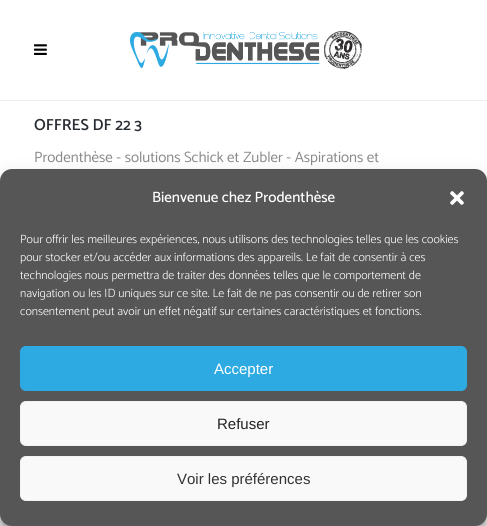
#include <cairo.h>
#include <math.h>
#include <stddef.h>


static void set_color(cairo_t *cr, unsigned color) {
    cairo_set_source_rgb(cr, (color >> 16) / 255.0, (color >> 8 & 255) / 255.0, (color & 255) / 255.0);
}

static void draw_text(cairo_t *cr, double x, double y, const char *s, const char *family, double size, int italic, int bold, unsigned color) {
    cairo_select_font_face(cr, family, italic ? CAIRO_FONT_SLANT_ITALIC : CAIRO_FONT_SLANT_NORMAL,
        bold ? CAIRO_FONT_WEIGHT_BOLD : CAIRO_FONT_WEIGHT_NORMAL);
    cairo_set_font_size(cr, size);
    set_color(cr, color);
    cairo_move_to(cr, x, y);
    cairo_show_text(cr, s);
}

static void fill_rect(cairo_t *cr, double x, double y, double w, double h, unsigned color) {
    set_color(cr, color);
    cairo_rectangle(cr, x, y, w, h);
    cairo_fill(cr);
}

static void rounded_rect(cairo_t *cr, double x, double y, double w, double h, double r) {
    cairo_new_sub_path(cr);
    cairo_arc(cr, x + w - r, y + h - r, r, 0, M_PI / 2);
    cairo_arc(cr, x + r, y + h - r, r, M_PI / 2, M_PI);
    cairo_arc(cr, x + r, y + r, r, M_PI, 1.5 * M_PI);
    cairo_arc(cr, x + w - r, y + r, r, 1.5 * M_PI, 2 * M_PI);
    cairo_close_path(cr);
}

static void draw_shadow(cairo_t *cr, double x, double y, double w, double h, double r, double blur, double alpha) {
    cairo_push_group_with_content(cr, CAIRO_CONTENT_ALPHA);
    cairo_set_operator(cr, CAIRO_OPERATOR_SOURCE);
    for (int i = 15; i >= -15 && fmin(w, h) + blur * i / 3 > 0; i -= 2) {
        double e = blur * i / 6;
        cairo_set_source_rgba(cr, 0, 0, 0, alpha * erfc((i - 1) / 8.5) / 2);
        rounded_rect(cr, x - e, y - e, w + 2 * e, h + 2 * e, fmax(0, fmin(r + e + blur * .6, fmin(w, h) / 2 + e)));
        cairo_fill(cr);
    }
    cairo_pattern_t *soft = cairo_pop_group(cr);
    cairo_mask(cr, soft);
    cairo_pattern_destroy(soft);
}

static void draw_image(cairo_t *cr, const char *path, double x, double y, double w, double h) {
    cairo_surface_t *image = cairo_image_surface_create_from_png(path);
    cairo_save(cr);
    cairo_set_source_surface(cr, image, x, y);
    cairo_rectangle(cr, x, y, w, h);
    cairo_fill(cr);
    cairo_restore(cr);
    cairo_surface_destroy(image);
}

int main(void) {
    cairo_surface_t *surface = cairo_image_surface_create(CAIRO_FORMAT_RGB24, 487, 526);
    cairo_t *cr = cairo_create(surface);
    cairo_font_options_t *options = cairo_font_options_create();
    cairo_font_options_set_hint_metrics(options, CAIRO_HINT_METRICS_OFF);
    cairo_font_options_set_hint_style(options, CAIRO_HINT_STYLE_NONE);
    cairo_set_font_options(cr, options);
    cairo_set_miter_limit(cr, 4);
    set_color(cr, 0xFFFFFF);
    cairo_paint(cr);
    draw_image(cr, "assets/img1.png", 34, 44, 13, 11);
    draw_image(cr, "assets/img2.png", 130, 31, 232, 38);
    draw_image(cr, "assets/img3.png", 0, 514, 487, 12);
    fill_rect(cr, 0, 100, 487, 1, 0xEEEEEE);
    draw_text(cr, 34, 130, "OFFRES DF 22 3", "Catamaran SemiBold", 16, 0, 0, 0x282D33);
    draw_text(cr, 34, 162, "Prodenthèse - solutions Schick et Zubler - Aspirations et", "Catamaran", 15, 0, 0, 0x898989);
    set_color(cr, 0x000000);
    draw_shadow(cr, 0, 175, 487, 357, 12, 3, 0.23);
    draw_shadow(cr, 0, 179, 487, 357, 12, 10, 0.19);
    set_color(cr, 0x575656);
    rounded_rect(cr, 0, 169, 487, 357, 12);
    cairo_fill(cr);
    draw_text(cr, 152, 202, "Bienvenue chez Prodenthèse", "Catamaran Medium", 15, 0, 0, 0xFFFFFF);
    draw_image(cr, "assets/img4.png", 450, 191, 14, 14);
    draw_text(cr, 20, 243, "Pour offrir les meilleures expériences, nous utilisons des technologies telles que les cookies", "Catamaran Light", 12, 0, 0, 0xFFFFFF);
    draw_text(cr, 20, 261, "pour stocker et/ou accéder aux informations des appareils. Le fait de consentir à ces", "Catamaran Light", 12, 0, 0, 0xFFFFFF);
    draw_text(cr, 20, 279, "technologies nous permettra de traiter des données telles que le comportement de", "Catamaran Light", 12, 0, 0, 0xFFFFFF);
    draw_text(cr, 20, 297, "navigation ou les ID uniques sur ce site. Le fait de ne pas consentir ou de retirer son", "Catamaran Light", 12, 0, 0, 0xFFFFFF);
    draw_text(cr, 20, 315, "consentement peut avoir un effet négatif sur certaines caractéristiques et fonctions.", "Catamaran Light", 12, 0, 0, 0xFFFFFF);
    set_color(cr, 0x2DAAE2);
    rounded_rect(cr, 20.5, 346.5, 446, 44, 5.5);
    cairo_fill_preserve(cr);
    cairo_set_line_width(cr, 1);
    cairo_stroke(cr);
    draw_text(cr, 214, 374, "Accepter", "Liberation Sans", 15, 0, 0, 0xFFFFFF);
    set_color(cr, 0xF9F9F9);
    rounded_rect(cr, 20.5, 401.5, 446, 44, 5.5);
    cairo_fill_preserve(cr);
    set_color(cr, 0xF2F2F2);
    cairo_stroke(cr);
    draw_text(cr, 217, 429, "Refuser", "Liberation Sans", 15, 0, 0, 0x222222);
    set_color(cr, 0xF9F9F9);
    rounded_rect(cr, 20.5, 456.5, 446, 44, 5.5);
    cairo_fill_preserve(cr);
    set_color(cr, 0xF2F2F2);
    cairo_stroke(cr);
    draw_text(cr, 177, 484, "Voir les préférences", "Liberation Sans", 15, 0, 0, 0x333333);
    cairo_surface_write_to_png(surface, "output.png");
    cairo_font_options_destroy(options);
    cairo_destroy(cr);
    cairo_surface_destroy(surface);
    return 0;
}
